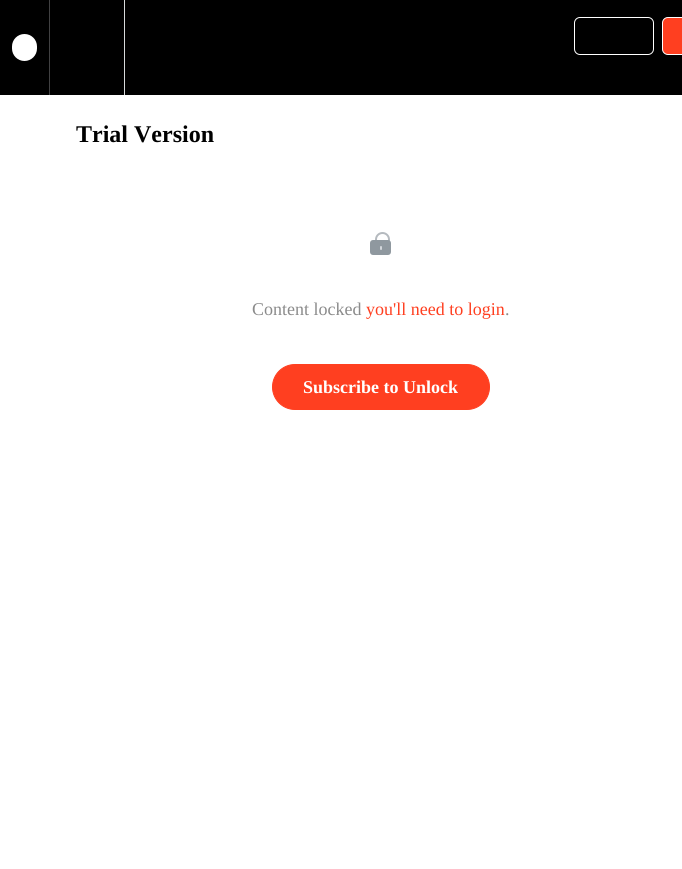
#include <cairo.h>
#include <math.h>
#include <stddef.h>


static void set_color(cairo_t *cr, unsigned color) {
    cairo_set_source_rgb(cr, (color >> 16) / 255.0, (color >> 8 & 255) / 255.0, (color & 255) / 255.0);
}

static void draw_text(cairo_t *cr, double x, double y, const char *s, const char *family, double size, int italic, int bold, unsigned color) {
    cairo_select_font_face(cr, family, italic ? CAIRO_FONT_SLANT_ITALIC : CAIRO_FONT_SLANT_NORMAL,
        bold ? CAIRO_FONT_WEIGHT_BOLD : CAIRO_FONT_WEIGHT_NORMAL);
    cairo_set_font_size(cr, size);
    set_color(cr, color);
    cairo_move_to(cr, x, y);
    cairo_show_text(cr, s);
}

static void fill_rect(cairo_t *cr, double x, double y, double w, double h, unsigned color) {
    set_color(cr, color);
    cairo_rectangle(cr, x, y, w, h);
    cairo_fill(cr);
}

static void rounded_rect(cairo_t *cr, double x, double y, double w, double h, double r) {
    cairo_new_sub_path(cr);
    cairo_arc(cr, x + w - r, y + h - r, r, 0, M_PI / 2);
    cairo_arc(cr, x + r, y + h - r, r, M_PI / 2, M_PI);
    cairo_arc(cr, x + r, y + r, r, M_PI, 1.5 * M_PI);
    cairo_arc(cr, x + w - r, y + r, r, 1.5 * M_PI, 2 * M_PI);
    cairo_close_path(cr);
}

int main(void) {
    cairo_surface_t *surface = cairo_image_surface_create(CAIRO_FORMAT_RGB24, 682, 869);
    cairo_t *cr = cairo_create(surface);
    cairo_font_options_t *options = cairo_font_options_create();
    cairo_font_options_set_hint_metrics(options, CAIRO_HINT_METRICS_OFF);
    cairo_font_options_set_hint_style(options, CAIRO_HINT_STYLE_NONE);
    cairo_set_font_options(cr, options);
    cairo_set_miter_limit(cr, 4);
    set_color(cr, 0xFFFFFF);
    cairo_paint(cr);
    fill_rect(cr, 0, 0, 682, 95, 0x000000);
    set_color(cr, 0xFFFFFF);
    rounded_rect(cr, 12, 34, 25, 27, 12.5);
    cairo_fill(cr);
    fill_rect(cr, 124, 0, 1, 95, 0xD7DADB);
    fill_rect(cr, 49, 0, 1, 95, 0x414142);
    rounded_rect(cr, 574.5, 17.5, 79, 37, 5.5);
    set_color(cr, 0xFFFFFF);
    cairo_set_line_width(cr, 1);
    cairo_stroke(cr);
    set_color(cr, 0xFF3F20);
    rounded_rect(cr, 662.5, 17.5, 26, 37, 5.5);
    cairo_fill_preserve(cr);
    set_color(cr, 0xFFFFFF);
    cairo_stroke(cr);
    draw_text(cr, 76, 142, "Trial Version", "Liberation Serif", 24, 0, 1, 0x000000);
    rounded_rect(cr, 376, 233, 13, 20, 6.5);
    set_color(cr, 0xB5BABF);
    cairo_set_line_width(cr, 2);
    cairo_stroke(cr);
    set_color(cr, 0x8F989F);
    rounded_rect(cr, 370, 240, 21, 15, 3);
    cairo_fill(cr);
    set_color(cr, 0xD3D7DC);
    rounded_rect(cr, 380, 246, 2, 4, 1);
    cairo_fill(cr);
    draw_text(cr, 252, 315, "Content locked", "Liberation Serif", 18, 0, 0, 0x8B8B8B);
    draw_text(cr, 366, 315, "you'll need to login", "Liberation Serif", 18, 0, 0, 0xFF3F20);
    draw_text(cr, 505, 315, ".", "Liberation Serif", 18, 0, 0, 0x8B8B8B);
    set_color(cr, 0xFF3F20);
    rounded_rect(cr, 272.5, 364.5, 217, 45, 22.5);
    cairo_fill_preserve(cr);
    cairo_set_line_width(cr, 1);
    cairo_stroke(cr);
    draw_text(cr, 303, 393, "Subscribe to Unlock", "Liberation Serif", 18, 0, 1, 0xFFFFFF);
    cairo_surface_write_to_png(surface, "output.png");
    cairo_font_options_destroy(options);
    cairo_destroy(cr);
    cairo_surface_destroy(surface);
    return 0;
}
